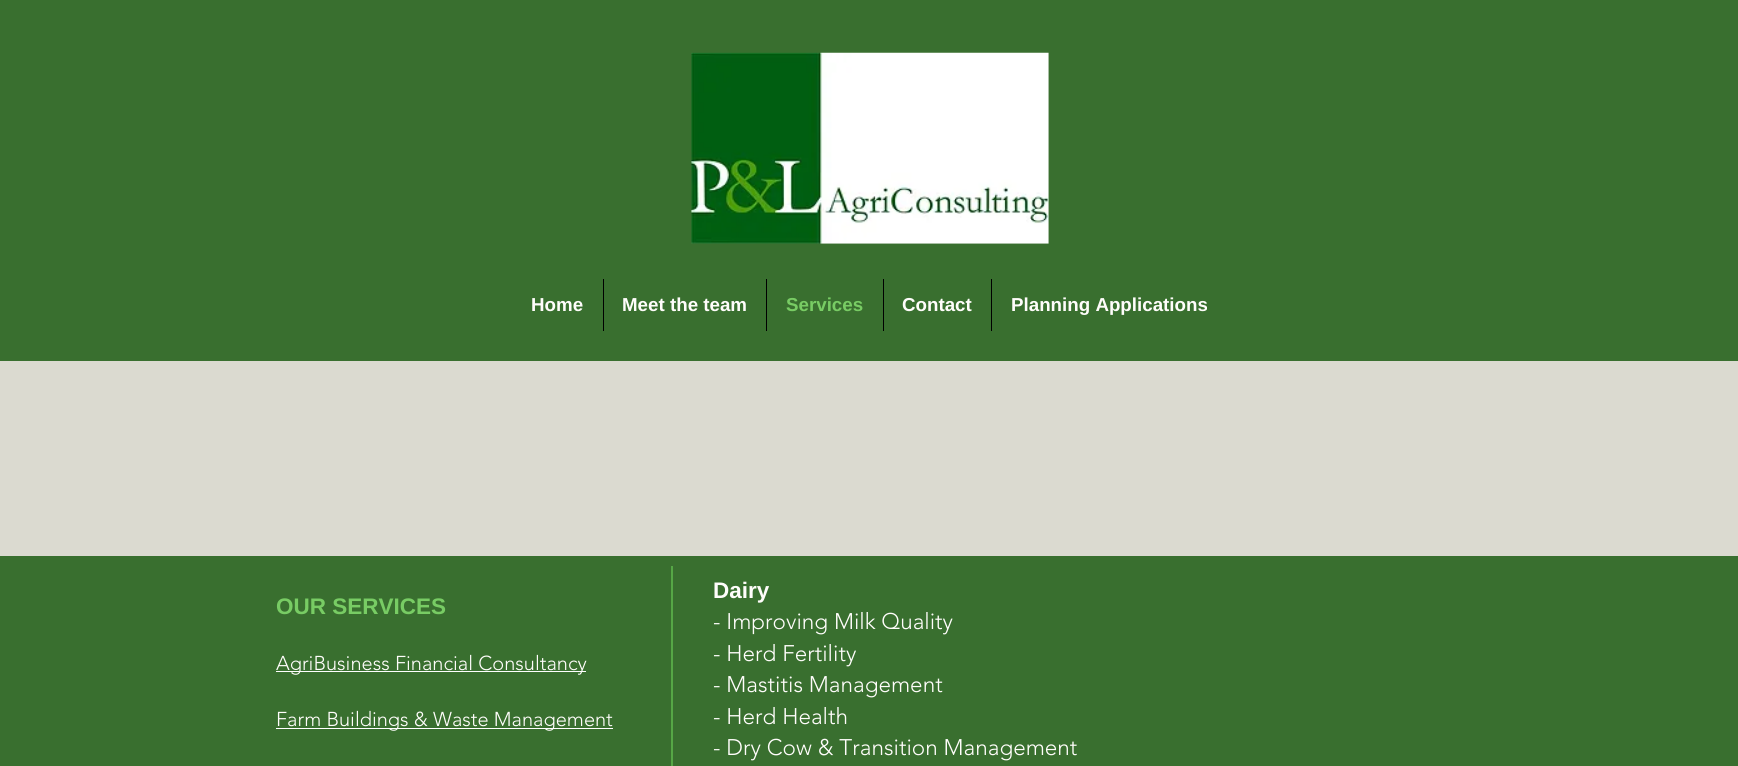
#include <cairo.h>
#include <math.h>
#include <stddef.h>


static void set_color(cairo_t *cr, unsigned color) {
    cairo_set_source_rgb(cr, (color >> 16) / 255.0, (color >> 8 & 255) / 255.0, (color & 255) / 255.0);
}

static void draw_text(cairo_t *cr, double x, double y, const char *s, const char *family, double size, int italic, int bold, unsigned color) {
    cairo_select_font_face(cr, family, italic ? CAIRO_FONT_SLANT_ITALIC : CAIRO_FONT_SLANT_NORMAL,
        bold ? CAIRO_FONT_WEIGHT_BOLD : CAIRO_FONT_WEIGHT_NORMAL);
    cairo_set_font_size(cr, size);
    set_color(cr, color);
    cairo_move_to(cr, x, y);
    cairo_show_text(cr, s);
}

static void fill_rect(cairo_t *cr, double x, double y, double w, double h, unsigned color) {
    set_color(cr, color);
    cairo_rectangle(cr, x, y, w, h);
    cairo_fill(cr);
}

static void draw_image(cairo_t *cr, const char *path, double x, double y, double w, double h) {
    cairo_surface_t *image = cairo_image_surface_create_from_png(path);
    cairo_save(cr);
    cairo_set_source_surface(cr, image, x, y);
    cairo_rectangle(cr, x, y, w, h);
    cairo_fill(cr);
    cairo_restore(cr);
    cairo_surface_destroy(image);
}

int main(void) {
    cairo_surface_t *surface = cairo_image_surface_create(CAIRO_FORMAT_RGB24, 1738, 766);
    cairo_t *cr = cairo_create(surface);
    cairo_font_options_t *options = cairo_font_options_create();
    cairo_font_options_set_hint_metrics(options, CAIRO_HINT_METRICS_OFF);
    cairo_font_options_set_hint_style(options, CAIRO_HINT_STYLE_NONE);
    cairo_set_font_options(cr, options);
    cairo_set_miter_limit(cr, 4);
    set_color(cr, 0x396F2F);
    cairo_paint(cr);
    draw_image(cr, "assets/img1.png", 691, 52, 358, 192);
    draw_text(cr, 531, 311, "Home", "Liberation Sans", 18.75, 0, 1, 0xFFFDFB);
    fill_rect(cr, 603, 279, 1, 52, 0x000000);
    draw_text(cr, 622, 311, "Meet the team", "Liberation Sans", 18.75, 0, 1, 0xFFFDFB);
    fill_rect(cr, 766, 279, 1, 52, 0x000000);
    draw_text(cr, 786, 311, "Services", "Liberation Sans", 18.75, 0, 1, 0x78CC64);
    fill_rect(cr, 883, 279, 1, 52, 0x000000);
    draw_text(cr, 902, 311, "Contact", "Liberation Sans", 18.75, 0, 1, 0xFFFDFB);
    fill_rect(cr, 991, 279, 1, 52, 0x000000);
    draw_text(cr, 1011, 311, "Planning Applications", "Liberation Sans", 18.75, 0, 1, 0xFFFDFB);
    fill_rect(cr, 0, 361, 1738, 195, 0xDBDAD0);
    draw_text(cr, 276, 614, "OUR SERVICES", "Liberation Sans", 22.5, 0, 1, 0x78CC64);
    fill_rect(cr, 276, 671, 310, 1, 0xFFFFFF);
    draw_text(cr, 276, 670, "AgriBusiness Financial Consultancy", "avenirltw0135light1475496 Light", 20, 0, 0, 0xFFFDFB);
    fill_rect(cr, 276, 728, 337, 1, 0xFFFFFF);
    draw_text(cr, 276, 726, "Farm Buildings & Waste Management", "avenirltw0135light1475496 Light", 20, 0, 0, 0xFFFDFB);
    fill_rect(cr, 671, 566, 2, 200, 0x56A746);
    draw_text(cr, 713, 598, "Dairy", "Liberation Sans", 22.5, 0, 1, 0xFFFDFB);
    draw_text(cr, 713, 629, "- Improving Milk Quality", "avenirltw0135light1475496 Light", 22.5, 0, 0, 0xFFFDFB);
    draw_text(cr, 713, 661, "- Herd Fertility", "avenirltw0135light1475496 Light", 22.5, 0, 0, 0xFFFDFB);
    draw_text(cr, 713, 692, "- Mastitis Management", "avenirltw0135light1475496 Light", 22.5, 0, 0, 0xFFFDFB);
    draw_text(cr, 713, 724, "- Herd Health", "avenirltw0135light1475496 Light", 22.5, 0, 0, 0xFFFDFB);
    draw_text(cr, 713, 755, "- Dry Cow & Transition Management", "avenirltw0135light1475496 Light", 22.5, 0, 0, 0xFFFDFB);
    cairo_surface_write_to_png(surface, "output.png");
    cairo_font_options_destroy(options);
    cairo_destroy(cr);
    cairo_surface_destroy(surface);
    return 0;
}
